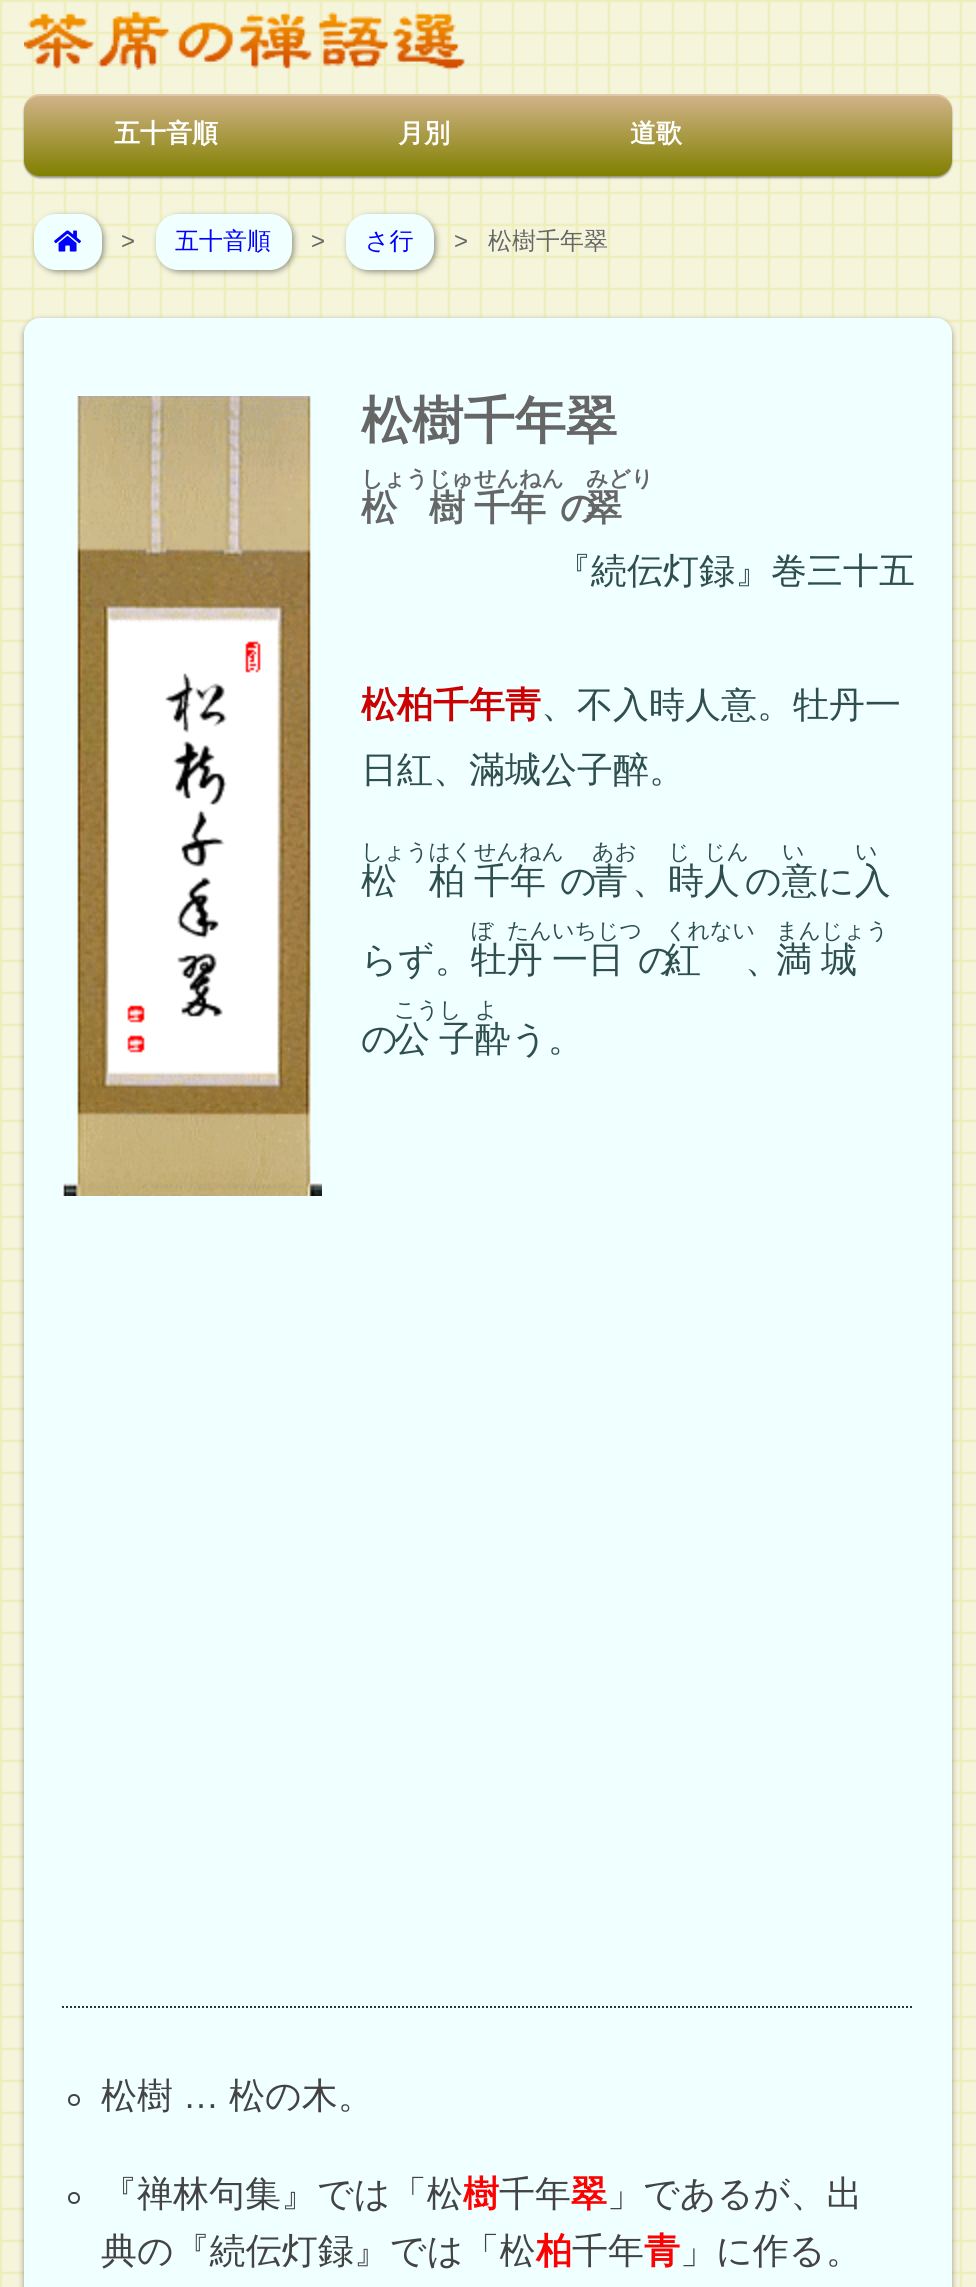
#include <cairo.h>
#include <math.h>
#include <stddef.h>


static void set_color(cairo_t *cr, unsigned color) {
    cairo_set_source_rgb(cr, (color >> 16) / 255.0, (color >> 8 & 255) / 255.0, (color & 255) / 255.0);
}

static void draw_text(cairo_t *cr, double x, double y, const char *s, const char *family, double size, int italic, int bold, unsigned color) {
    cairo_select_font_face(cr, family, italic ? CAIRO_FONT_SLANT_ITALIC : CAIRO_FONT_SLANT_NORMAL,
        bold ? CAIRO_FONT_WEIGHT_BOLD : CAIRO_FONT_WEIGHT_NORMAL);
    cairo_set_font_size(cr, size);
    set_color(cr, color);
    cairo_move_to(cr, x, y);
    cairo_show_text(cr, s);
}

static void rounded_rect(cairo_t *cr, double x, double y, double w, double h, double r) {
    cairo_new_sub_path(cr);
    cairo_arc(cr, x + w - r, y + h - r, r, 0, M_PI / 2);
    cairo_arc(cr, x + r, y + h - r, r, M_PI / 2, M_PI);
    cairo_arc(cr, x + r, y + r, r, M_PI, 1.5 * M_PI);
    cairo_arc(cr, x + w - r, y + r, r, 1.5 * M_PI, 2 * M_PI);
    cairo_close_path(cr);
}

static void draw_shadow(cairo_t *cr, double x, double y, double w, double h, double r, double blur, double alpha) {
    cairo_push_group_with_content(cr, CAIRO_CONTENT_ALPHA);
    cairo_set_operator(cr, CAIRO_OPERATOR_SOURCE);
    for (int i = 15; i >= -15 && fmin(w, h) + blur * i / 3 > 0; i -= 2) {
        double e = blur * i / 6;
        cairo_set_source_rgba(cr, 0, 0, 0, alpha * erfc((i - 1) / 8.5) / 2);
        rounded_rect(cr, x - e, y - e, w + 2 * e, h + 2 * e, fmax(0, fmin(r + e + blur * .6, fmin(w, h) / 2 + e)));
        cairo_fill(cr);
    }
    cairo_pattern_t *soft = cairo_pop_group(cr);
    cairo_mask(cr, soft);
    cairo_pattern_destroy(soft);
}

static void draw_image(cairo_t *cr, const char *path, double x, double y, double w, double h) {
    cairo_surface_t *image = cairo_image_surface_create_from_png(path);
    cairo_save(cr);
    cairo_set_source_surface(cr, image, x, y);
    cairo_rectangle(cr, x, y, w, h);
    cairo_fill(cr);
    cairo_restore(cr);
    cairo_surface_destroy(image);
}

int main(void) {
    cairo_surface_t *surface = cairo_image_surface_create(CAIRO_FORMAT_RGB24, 976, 2287);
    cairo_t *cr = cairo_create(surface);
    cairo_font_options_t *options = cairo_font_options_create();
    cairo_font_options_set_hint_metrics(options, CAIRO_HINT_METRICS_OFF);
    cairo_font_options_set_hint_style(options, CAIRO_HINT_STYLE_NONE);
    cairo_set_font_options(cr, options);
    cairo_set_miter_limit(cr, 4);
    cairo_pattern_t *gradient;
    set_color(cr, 0xF5F5DC);
    cairo_paint(cr);
    draw_image(cr, "assets/img1.png", 0, 0, 976, 2287);
    draw_image(cr, "assets/img2.png", 24, 10, 442, 60);
    set_color(cr, 0x000000);
    draw_shadow(cr, 24, 96, 928, 82, 16, 1, 0.4);
    gradient = cairo_pattern_create_linear(488, 94, 488, 176);
    cairo_pattern_add_color_stop_rgba(gradient, 0, 0.824, 0.706, 0.549, 1);
    cairo_pattern_add_color_stop_rgba(gradient, 1, 0.502, 0.502, 0, 1);
    cairo_set_source(cr, gradient);
    cairo_pattern_destroy(gradient);
    rounded_rect(cr, 24, 94, 928, 82, 16);
    cairo_fill(cr);
    cairo_set_source_rgba(cr, 1, 1, 1, 0.3);
    cairo_new_path(cr);
    cairo_move_to(cr, 40, 96);
    cairo_line_to(cr, 936, 96);
    cairo_curve_to(cr, 945, 96, 952, 103, 952, 112);
    cairo_curve_to(cr, 952, 102, 946, 94, 936, 94);
    cairo_line_to(cr, 40, 94);
    cairo_curve_to(cr, 30, 94, 24, 102, 24, 112);
    cairo_curve_to(cr, 24, 103, 31, 96, 40, 96);
    cairo_close_path(cr);
    cairo_fill(cr);
    draw_text(cr, 114, 142, "五十音順", "WenQuanYi Zen Hei", 26, 0, 1, 0xFFFFFF);
    draw_text(cr, 398, 142, "月別", "WenQuanYi Zen Hei", 26, 0, 1, 0xFFFFFF);
    draw_text(cr, 630, 142, "道歌", "WenQuanYi Zen Hei", 26, 0, 1, 0xFFFFFF);
    set_color(cr, 0x000000);
    draw_shadow(cr, 36, 216, 68, 56, 22, 3, 0.4);
    set_color(cr, 0xF0FFFF);
    rounded_rect(cr, 34, 214, 68, 56, 22);
    cairo_fill(cr);
    draw_image(cr, "assets/img3.png", 54, 230, 27, 22);
    draw_text(cr, 121, 249, ">", "Liberation Sans", 24, 0, 0, 0x666666);
    set_color(cr, 0x000000);
    draw_shadow(cr, 158, 216, 136, 56, 22, 3, 0.4);
    set_color(cr, 0xF0FFFF);
    rounded_rect(cr, 156, 214, 136, 56, 22);
    cairo_fill(cr);
    draw_text(cr, 175, 249, "五十音順", "WenQuanYi Zen Hei Medium", 24, 0, 0, 0x0000FF);
    draw_text(cr, 311, 249, ">", "Liberation Sans", 24, 0, 0, 0x666666);
    set_color(cr, 0x000000);
    draw_shadow(cr, 348, 216, 88, 56, 22, 3, 0.4);
    set_color(cr, 0xF0FFFF);
    rounded_rect(cr, 346, 214, 88, 56, 22);
    cairo_fill(cr);
    draw_text(cr, 365, 249, "さ行", "WenQuanYi Zen Hei Medium", 24, 0, 0, 0x0000FF);
    draw_text(cr, 454, 249, ">", "Liberation Sans", 24, 0, 0, 0x666666);
    draw_text(cr, 488, 249, "松樹千年翠", "WenQuanYi Zen Hei Medium", 24, 0, 0, 0x666666);
    set_color(cr, 0x000000);
    draw_shadow(cr, 24, 320, 928, 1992, 16, 3, 0.4);
    set_color(cr, 0xF0FFFF);
    rounded_rect(cr, 24, 318, 928, 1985, 16);
    cairo_fill(cr);
    draw_image(cr, "assets/img4.png", 62, 396, 260, 800);
    draw_text(cr, 361, 438, "松樹千年翠", "WenQuanYi Zen Hei", 51.25, 0, 1, 0x666666);
    draw_text(cr, 361, 486, "しょうじゅ", "WenQuanYi Zen Hei", 22, 0, 1, 0x666666);
    draw_text(cr, 361, 520, "松", "WenQuanYi Zen Hei", 36, 0, 1, 0x666666);
    draw_text(cr, 474, 486, "せんねん", "WenQuanYi Zen Hei", 22, 0, 1, 0x666666);
    draw_text(cr, 474, 520, "千年", "WenQuanYi Zen Hei", 36, 0, 1, 0x666666);
    draw_text(cr, 586, 486, "みどり", "WenQuanYi Zen Hei", 22, 0, 1, 0x666666);
    draw_text(cr, 560, 520, "の", "WenQuanYi Zen Hei", 36, 0, 1, 0x666666);
    draw_text(cr, 586, 520, "翠", "WenQuanYi Zen Hei", 36, 0, 1, 0x666666);
    draw_text(cr, 429, 520, "樹", "WenQuanYi Zen Hei", 36, 0, 1, 0x666666);
    draw_text(cr, 555, 583, "『続伝灯録』巻三十五", "WenQuanYi Zen Hei Medium", 36, 0, 0, 0x2F4F4F);
    draw_text(cr, 361, 717, "松柏千年靑", "WenQuanYi Zen Hei", 36, 0, 1, 0xCC0000);
    draw_text(cr, 541, 717, "、不入時人意。牡丹一", "WenQuanYi Zen Hei Medium", 36, 0, 0, 0x2F4F4F);
    draw_text(cr, 361, 782, "日紅、滿城公子醉。", "WenQuanYi Zen Hei Medium", 36, 0, 0, 0x2F4F4F);
    draw_text(cr, 361, 859, "しょうはく", "WenQuanYi Zen Hei Medium", 22, 0, 0, 0x2F4F4F);
    draw_text(cr, 361, 893, "松", "WenQuanYi Zen Hei Medium", 36, 0, 0, 0x2F4F4F);
    draw_text(cr, 474, 859, "せんねん", "WenQuanYi Zen Hei Medium", 22, 0, 0, 0x2F4F4F);
    draw_text(cr, 474, 893, "千年", "WenQuanYi Zen Hei Medium", 36, 0, 0, 0x2F4F4F);
    draw_text(cr, 592, 859, "あお", "WenQuanYi Zen Hei Medium", 22, 0, 0, 0x2F4F4F);
    draw_text(cr, 560, 893, "の", "WenQuanYi Zen Hei Medium", 36, 0, 0, 0x2F4F4F);
    draw_text(cr, 592, 893, "青", "WenQuanYi Zen Hei Medium", 36, 0, 0, 0x2F4F4F);
    draw_text(cr, 668, 859, "じ", "WenQuanYi Zen Hei Medium", 22, 0, 0, 0x2F4F4F);
    draw_text(cr, 704, 859, "じん", "WenQuanYi Zen Hei Medium", 22, 0, 0, 0x2F4F4F);
    draw_text(cr, 782, 859, "い", "WenQuanYi Zen Hei Medium", 22, 0, 0, 0x2F4F4F);
    draw_text(cr, 855, 859, "い", "WenQuanYi Zen Hei Medium", 22, 0, 0, 0x2F4F4F);
    draw_text(cr, 429, 893, "柏", "WenQuanYi Zen Hei Medium", 36, 0, 0, 0x2F4F4F);
    draw_text(cr, 632, 893, "、時人", "WenQuanYi Zen Hei Medium", 36, 0, 0, 0x2F4F4F);
    draw_text(cr, 745, 893, "の意に入", "WenQuanYi Zen Hei Medium", 36, 0, 0, 0x2F4F4F);
    draw_text(cr, 471, 938, "ぼ", "WenQuanYi Zen Hei Medium", 22, 0, 0, 0x2F4F4F);
    draw_text(cr, 507, 938, "たんいちじつ", "WenQuanYi Zen Hei Medium", 22, 0, 0, 0x2F4F4F);
    draw_text(cr, 665, 938, "くれない", "WenQuanYi Zen Hei Medium", 22, 0, 0, 0x2F4F4F);
    draw_text(cr, 638, 972, "の", "WenQuanYi Zen Hei Medium", 36, 0, 0, 0x2F4F4F);
    draw_text(cr, 665, 972, "紅", "WenQuanYi Zen Hei Medium", 36, 0, 0, 0x2F4F4F);
    draw_text(cr, 776, 938, "まん", "WenQuanYi Zen Hei Medium", 22, 0, 0, 0x2F4F4F);
    draw_text(cr, 776, 972, "満", "WenQuanYi Zen Hei Medium", 36, 0, 0, 0x2F4F4F);
    draw_text(cr, 821, 938, "じょう", "WenQuanYi Zen Hei Medium", 22, 0, 0, 0x2F4F4F);
    draw_text(cr, 821, 972, "城", "WenQuanYi Zen Hei Medium", 36, 0, 0, 0x2F4F4F);
    draw_text(cr, 361, 972, "らず。牡丹", "WenQuanYi Zen Hei Medium", 36, 0, 0, 0x2F4F4F);
    draw_text(cr, 552, 972, "一日", "WenQuanYi Zen Hei Medium", 36, 0, 0, 0x2F4F4F);
    draw_text(cr, 745, 972, "、", "WenQuanYi Zen Hei Medium", 36, 0, 0, 0x2F4F4F);
    draw_text(cr, 394, 1017, "こうし", "WenQuanYi Zen Hei Medium", 22, 0, 0, 0x2F4F4F);
    draw_text(cr, 361, 1051, "の", "WenQuanYi Zen Hei Medium", 36, 0, 0, 0x2F4F4F);
    draw_text(cr, 394, 1051, "公", "WenQuanYi Zen Hei Medium", 36, 0, 0, 0x2F4F4F);
    draw_text(cr, 475, 1017, "よ", "WenQuanYi Zen Hei Medium", 22, 0, 0, 0x2F4F4F);
    draw_text(cr, 439, 1051, "子酔う。", "WenQuanYi Zen Hei Medium", 36, 0, 0, 0x2F4F4F);
    cairo_new_path(cr);
    cairo_move_to(cr, 62, 2007);
    cairo_line_to(cr, 914, 2007);
    set_color(cr, 0x333333);
    cairo_set_dash(cr, (double[]){2, 2}, 2, 0);
    cairo_stroke(cr);
    cairo_arc(cr, 74, 2100, 5, 0, 2 * M_PI);
    set_color(cr, 0x434343);
    cairo_set_dash(cr, NULL, 0, 0);
    cairo_stroke(cr);
    draw_text(cr, 101, 2108, "松樹", "WenQuanYi Zen Hei Medium", 36, 0, 0, 0x434343);
    draw_text(cr, 183, 2108, "…", "Liberation Sans", 36, 0, 0, 0x434343);
    draw_text(cr, 229, 2108, "松の木。", "WenQuanYi Zen Hei Medium", 36, 0, 0, 0x434343);
    cairo_new_path(cr);
    cairo_arc(cr, 74, 2198, 5, 0, 2 * M_PI);
    cairo_stroke(cr);
    draw_text(cr, 101, 2206, "『禅林句集』では「松", "WenQuanYi Zen Hei Medium", 36, 0, 0, 0x434343);
    draw_text(cr, 463, 2206, "樹", "WenQuanYi Zen Hei", 36, 0, 1, 0xFF0000);
    draw_text(cr, 499, 2206, "千年", "WenQuanYi Zen Hei Medium", 36, 0, 0, 0x434343);
    draw_text(cr, 571, 2206, "翠", "WenQuanYi Zen Hei", 36, 0, 1, 0xFF0000);
    draw_text(cr, 607, 2206, "」であるが、出", "WenQuanYi Zen Hei Medium", 36, 0, 0, 0x434343);
    draw_text(cr, 101, 2263, "典の『続伝灯録』では「松", "WenQuanYi Zen Hei Medium", 36, 0, 0, 0x434343);
    draw_text(cr, 536, 2263, "柏", "WenQuanYi Zen Hei", 36, 0, 1, 0xFF0000);
    draw_text(cr, 572, 2263, "千年", "WenQuanYi Zen Hei Medium", 36, 0, 0, 0x434343);
    draw_text(cr, 644, 2263, "青", "WenQuanYi Zen Hei", 36, 0, 1, 0xFF0000);
    draw_text(cr, 680, 2263, "」に作る。", "WenQuanYi Zen Hei Medium", 36, 0, 0, 0x434343);
    cairo_surface_write_to_png(surface, "output.png");
    cairo_font_options_destroy(options);
    cairo_destroy(cr);
    cairo_surface_destroy(surface);
    return 0;
}
